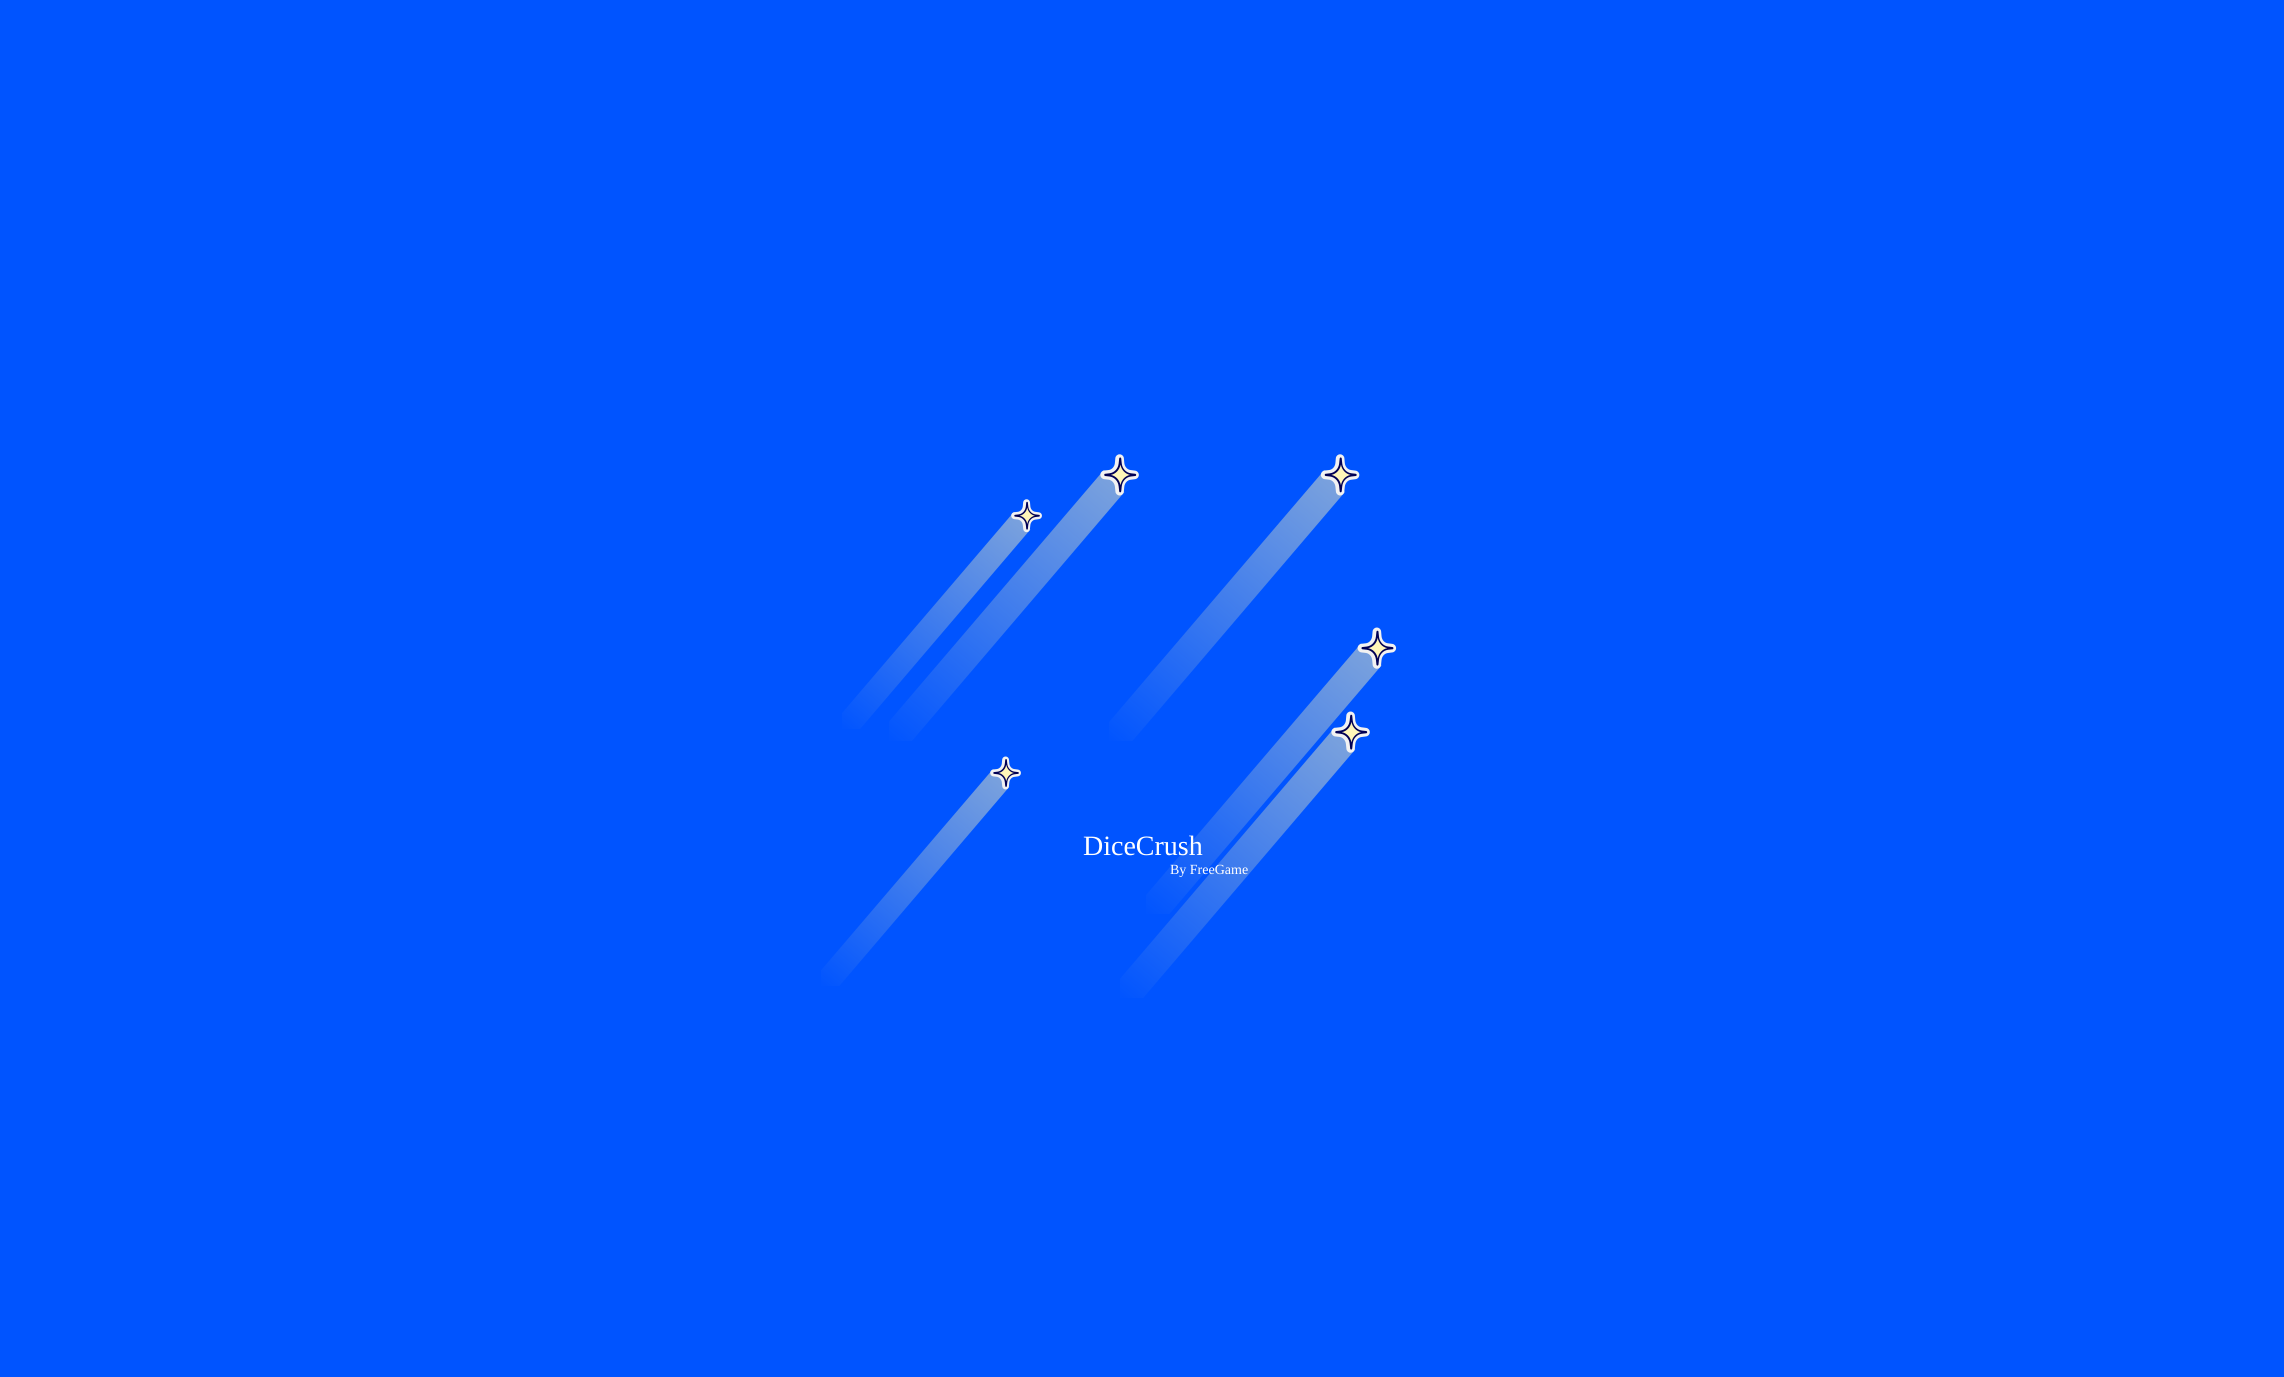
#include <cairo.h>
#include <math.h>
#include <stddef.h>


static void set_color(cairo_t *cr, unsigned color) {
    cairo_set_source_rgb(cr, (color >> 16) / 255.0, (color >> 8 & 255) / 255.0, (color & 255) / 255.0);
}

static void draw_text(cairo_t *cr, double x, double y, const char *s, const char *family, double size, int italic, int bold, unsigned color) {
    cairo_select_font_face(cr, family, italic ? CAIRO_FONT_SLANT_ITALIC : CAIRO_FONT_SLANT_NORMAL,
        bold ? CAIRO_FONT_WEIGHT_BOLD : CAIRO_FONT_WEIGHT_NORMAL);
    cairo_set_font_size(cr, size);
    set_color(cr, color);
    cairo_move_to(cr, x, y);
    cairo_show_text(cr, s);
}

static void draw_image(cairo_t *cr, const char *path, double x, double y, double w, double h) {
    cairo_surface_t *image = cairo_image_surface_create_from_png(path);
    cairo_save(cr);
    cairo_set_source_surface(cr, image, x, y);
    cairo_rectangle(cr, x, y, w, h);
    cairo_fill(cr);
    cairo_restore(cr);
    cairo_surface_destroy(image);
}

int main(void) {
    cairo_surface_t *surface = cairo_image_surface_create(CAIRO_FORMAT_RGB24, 2284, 1377);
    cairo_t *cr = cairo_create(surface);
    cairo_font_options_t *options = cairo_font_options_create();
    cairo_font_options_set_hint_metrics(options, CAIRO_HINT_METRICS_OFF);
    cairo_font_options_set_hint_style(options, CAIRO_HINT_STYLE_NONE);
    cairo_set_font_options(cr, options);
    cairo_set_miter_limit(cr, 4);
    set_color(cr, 0x0054FF);
    cairo_paint(cr);
    draw_image(cr, "assets/img1.png", 889, 454, 250, 287);
    draw_image(cr, "assets/img2.png", 1109, 454, 251, 287);
    draw_image(cr, "assets/img3.png", 842, 499, 200, 230);
    draw_image(cr, "assets/img4.png", 1146, 627, 251, 287);
    draw_image(cr, "assets/img5.png", 821, 756, 200, 230);
    draw_image(cr, "assets/img6.png", 1120, 711, 250, 287);
    draw_text(cr, 1083, 855, "DiceCrush", "Liberation Serif", 28, 0, 0, 0xFFFFFF);
    draw_text(cr, 1170, 874, "By FreeGame", "Liberation Serif", 14, 0, 0, 0xFFFFFF);
    cairo_surface_write_to_png(surface, "output.png");
    cairo_font_options_destroy(options);
    cairo_destroy(cr);
    cairo_surface_destroy(surface);
    return 0;
}
